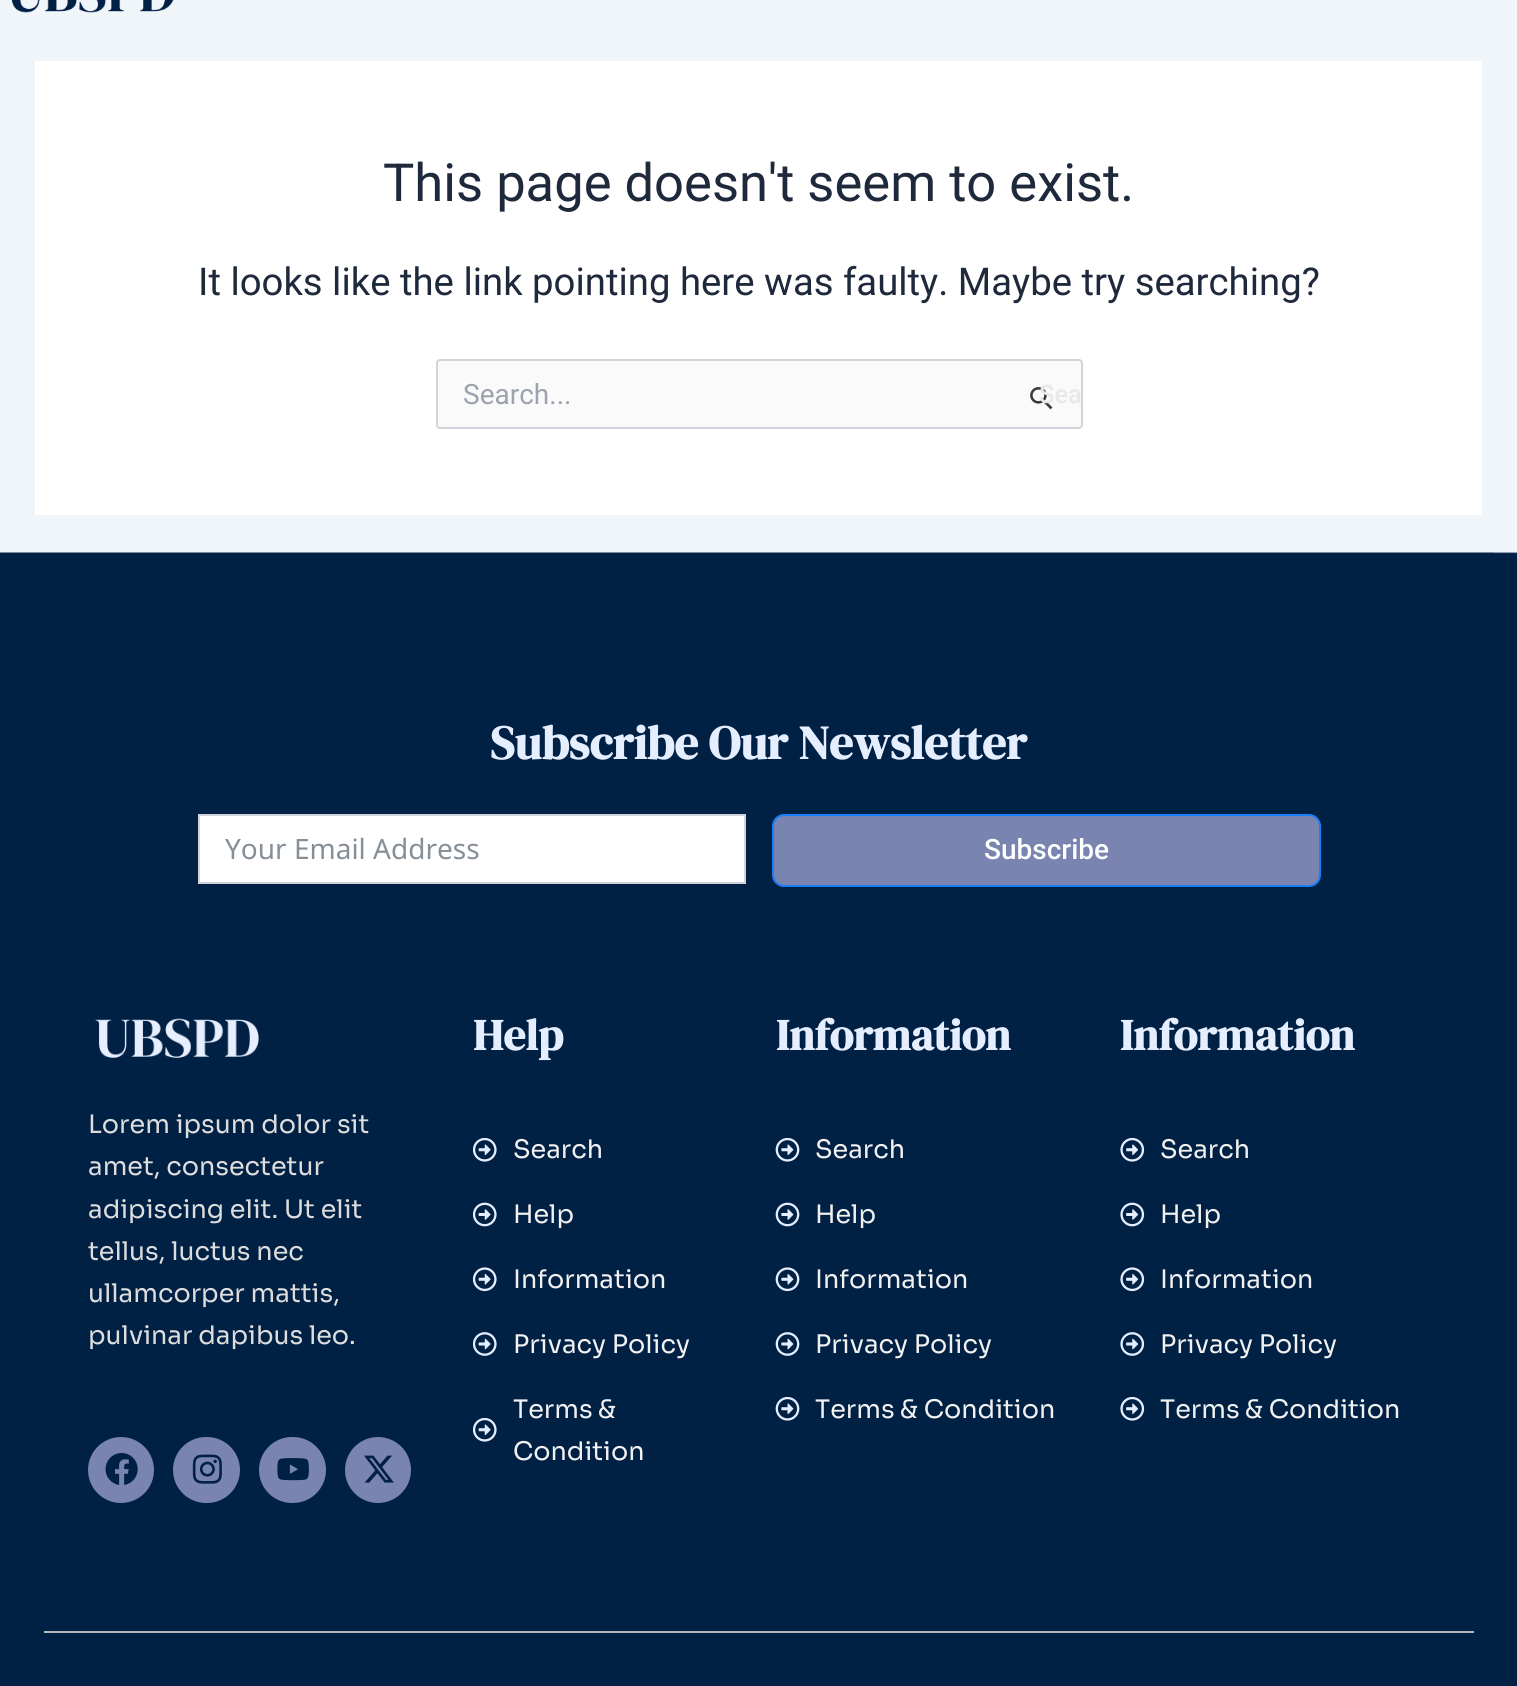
#include <cairo.h>
#include <math.h>
#include <stddef.h>


static void set_color(cairo_t *cr, unsigned color) {
    cairo_set_source_rgb(cr, (color >> 16) / 255.0, (color >> 8 & 255) / 255.0, (color & 255) / 255.0);
}

static void draw_text(cairo_t *cr, double x, double y, const char *s, const char *family, double size, int italic, int bold, unsigned color) {
    cairo_select_font_face(cr, family, italic ? CAIRO_FONT_SLANT_ITALIC : CAIRO_FONT_SLANT_NORMAL,
        bold ? CAIRO_FONT_WEIGHT_BOLD : CAIRO_FONT_WEIGHT_NORMAL);
    cairo_set_font_size(cr, size);
    set_color(cr, color);
    cairo_move_to(cr, x, y);
    cairo_show_text(cr, s);
}

static void fill_rect(cairo_t *cr, double x, double y, double w, double h, unsigned color) {
    set_color(cr, color);
    cairo_rectangle(cr, x, y, w, h);
    cairo_fill(cr);
}

static void rounded_rect(cairo_t *cr, double x, double y, double w, double h, double r) {
    cairo_new_sub_path(cr);
    cairo_arc(cr, x + w - r, y + h - r, r, 0, M_PI / 2);
    cairo_arc(cr, x + r, y + h - r, r, M_PI / 2, M_PI);
    cairo_arc(cr, x + r, y + r, r, M_PI, 1.5 * M_PI);
    cairo_arc(cr, x + w - r, y + r, r, 1.5 * M_PI, 2 * M_PI);
    cairo_close_path(cr);
}

static void draw_image(cairo_t *cr, const char *path, double x, double y, double w, double h) {
    cairo_surface_t *image = cairo_image_surface_create_from_png(path);
    cairo_save(cr);
    cairo_set_source_surface(cr, image, x, y);
    cairo_rectangle(cr, x, y, w, h);
    cairo_fill(cr);
    cairo_restore(cr);
    cairo_surface_destroy(image);
}

int main(void) {
    cairo_surface_t *surface = cairo_image_surface_create(CAIRO_FORMAT_RGB24, 1517, 1686);
    cairo_t *cr = cairo_create(surface);
    cairo_font_options_t *options = cairo_font_options_create();
    cairo_font_options_set_hint_metrics(options, CAIRO_HINT_METRICS_OFF);
    cairo_font_options_set_hint_style(options, CAIRO_HINT_STYLE_NONE);
    cairo_set_font_options(cr, options);
    cairo_set_miter_limit(cr, 4);
    set_color(cr, 0xF0F5FA);
    cairo_paint(cr);
    draw_image(cr, "assets/img1.png", 11, 0, 163, 13);
    fill_rect(cr, 35, 61, 1447, 454, 0xFFFFFF);
    draw_text(cr, 383, 201, "This page doesn't seem to exist.", "Roboto", 52.5, 0, 0, 0x1E293B);
    draw_text(cr, 198, 295, "It looks like the link pointing here was faulty. Maybe try searching?", "Roboto", 38.3, 0, 0, 0x1E293B);
    set_color(cr, 0xFAFAFA);
    rounded_rect(cr, 437, 360, 645, 68, 3);
    cairo_fill_preserve(cr);
    set_color(cr, 0xD1D5DB);
    cairo_stroke(cr);
    draw_text(cr, 463, 404, "Search...", "Roboto", 28, 0, 0, 0x9CA3AF);
    draw_image(cr, "assets/img2.png", 1030, 387, 23, 23);
    draw_text(cr, 1039, 403, "Sea", "Roboto Medium", 25.5, 0, 0, 0xE8E8E8);
    fill_rect(cr, 0, 554, 1517, 1132, 0x002044);
    draw_image(cr, "assets/img3.png", 0, 552, 1517, 2);
    draw_text(cr, 490, 759, "Subscribe Our Newsletter", "DM Serif Display", 47.25, 0, 1, 0xE5EEFF);
    set_color(cr, 0xFFFFFF);
    cairo_rectangle(cr, 199, 815, 546, 68);
    cairo_fill_preserve(cr);
    set_color(cr, 0xD1D5DB);
    cairo_stroke(cr);
    draw_text(cr, 225, 859, "Your Email Address", "Noto Sans", 28, 0, 0, 0x868E96);
    set_color(cr, 0x7984B0);
    rounded_rect(cr, 773, 815, 547, 71, 11);
    cairo_fill_preserve(cr);
    set_color(cr, 0x1A7EFB);
    cairo_stroke(cr);
    draw_text(cr, 984, 859, "Subscribe", "Roboto Medium", 28, 0, 0, 0xFFFFFF);
    fill_rect(cr, 44, 1631, 1430, 2, 0xB8B8B8);
    draw_image(cr, "assets/img4.png", 95, 1018, 164, 40);
    draw_text(cr, 88, 1133, "Lorem ipsum dolor sit", "Sora", 25.5, 0, 0, 0xDDDDDD);
    draw_text(cr, 88, 1175, "amet, consectetur", "Sora", 25.5, 0, 0, 0xDDDDDD);
    draw_text(cr, 88, 1218, "adipiscing elit. Ut elit", "Sora", 25.5, 0, 0, 0xDDDDDD);
    draw_text(cr, 88, 1260, "tellus, luctus nec", "Sora", 25.5, 0, 0, 0xDDDDDD);
    draw_text(cr, 88, 1302, "ullamcorper mattis,", "Sora", 25.5, 0, 0, 0xDDDDDD);
    draw_text(cr, 88, 1344, "pulvinar dapibus leo.", "Sora", 25.5, 0, 0, 0xDDDDDD);
    set_color(cr, 0x7984B0);
    cairo_new_path(cr);
    cairo_arc(cr, 121, 1470, 33, 0, 2 * M_PI);
    cairo_fill(cr);
    draw_image(cr, "assets/img5.png", 105, 1453, 33, 32);
    rounded_rect(cr, 173, 1437, 67, 66, 33);
    cairo_fill(cr);
    draw_image(cr, "assets/img6.png", 192, 1454, 30, 30);
    rounded_rect(cr, 259, 1437, 67, 66, 33);
    cairo_fill(cr);
    draw_image(cr, "assets/img7.png", 277, 1458, 32, 23);
    cairo_arc(cr, 378, 1470, 33, 0, 2 * M_PI);
    cairo_fill(cr);
    draw_image(cr, "assets/img8.png", 364, 1455, 30, 28);
    draw_text(cr, 473, 1050, "Help", "DM Serif Display", 43.75, 0, 1, 0xE5EEFF);
    draw_image(cr, "assets/img9.png", 473, 1138, 24, 24);
    draw_text(cr, 513, 1158, "Search", "Sora", 25.5, 0, 0, 0xF1F1F1);
    draw_image(cr, "assets/img10.png", 473, 1202, 24, 25);
    draw_text(cr, 513, 1223, "Help", "Sora", 25.5, 0, 0, 0xF1F1F1);
    draw_image(cr, "assets/img11.png", 473, 1267, 24, 25);
    draw_text(cr, 513, 1288, "Information", "Sora", 25.5, 0, 0, 0xF1F1F1);
    draw_image(cr, "assets/img12.png", 473, 1332, 24, 24);
    draw_text(cr, 513, 1353, "Privacy Policy", "Sora", 25.5, 0, 0, 0xF1F1F1);
    draw_image(cr, "assets/img9.png", 473, 1418, 24, 24);
    draw_text(cr, 513, 1418, "Terms &", "Sora", 25.5, 0, 0, 0xF1F1F1);
    draw_text(cr, 513, 1460, "Condition", "Sora", 25.5, 0, 0, 0xF1F1F1);
    draw_text(cr, 776, 1050, "Information", "DM Serif Display", 43.75, 0, 1, 0xE5EEFF);
    draw_image(cr, "assets/img13.png", 775, 1138, 25, 24);
    draw_text(cr, 815, 1158, "Search", "Sora", 25.5, 0, 0, 0xF1F1F1);
    draw_image(cr, "assets/img14.png", 775, 1202, 25, 25);
    draw_text(cr, 815, 1223, "Help", "Sora", 25.5, 0, 0, 0xF1F1F1);
    draw_image(cr, "assets/img15.png", 775, 1267, 25, 25);
    draw_text(cr, 815, 1288, "Information", "Sora", 25.5, 0, 0, 0xF1F1F1);
    draw_image(cr, "assets/img16.png", 775, 1332, 25, 24);
    draw_text(cr, 815, 1353, "Privacy Policy", "Sora", 25.5, 0, 0, 0xF1F1F1);
    draw_image(cr, "assets/img13.png", 775, 1397, 25, 24);
    draw_text(cr, 815, 1418, "Terms & Condition", "Sora", 25.5, 0, 0, 0xF1F1F1);
    draw_text(cr, 1120, 1050, "Information", "DM Serif Display", 43.75, 0, 1, 0xE5EEFF);
    draw_image(cr, "assets/img17.png", 1120, 1138, 25, 24);
    draw_text(cr, 1160, 1158, "Search", "Sora", 25.5, 0, 0, 0xF1F1F1);
    draw_image(cr, "assets/img18.png", 1120, 1202, 25, 25);
    draw_text(cr, 1160, 1223, "Help", "Sora", 25.5, 0, 0, 0xF1F1F1);
    draw_image(cr, "assets/img19.png", 1120, 1267, 25, 25);
    draw_text(cr, 1160, 1288, "Information", "Sora", 25.5, 0, 0, 0xF1F1F1);
    draw_image(cr, "assets/img20.png", 1120, 1332, 25, 24);
    draw_text(cr, 1160, 1353, "Privacy Policy", "Sora", 25.5, 0, 0, 0xF1F1F1);
    draw_image(cr, "assets/img17.png", 1120, 1397, 25, 24);
    draw_text(cr, 1160, 1418, "Terms & Condition", "Sora", 25.5, 0, 0, 0xF1F1F1);
    cairo_surface_write_to_png(surface, "output.png");
    cairo_font_options_destroy(options);
    cairo_destroy(cr);
    cairo_surface_destroy(surface);
    return 0;
}
